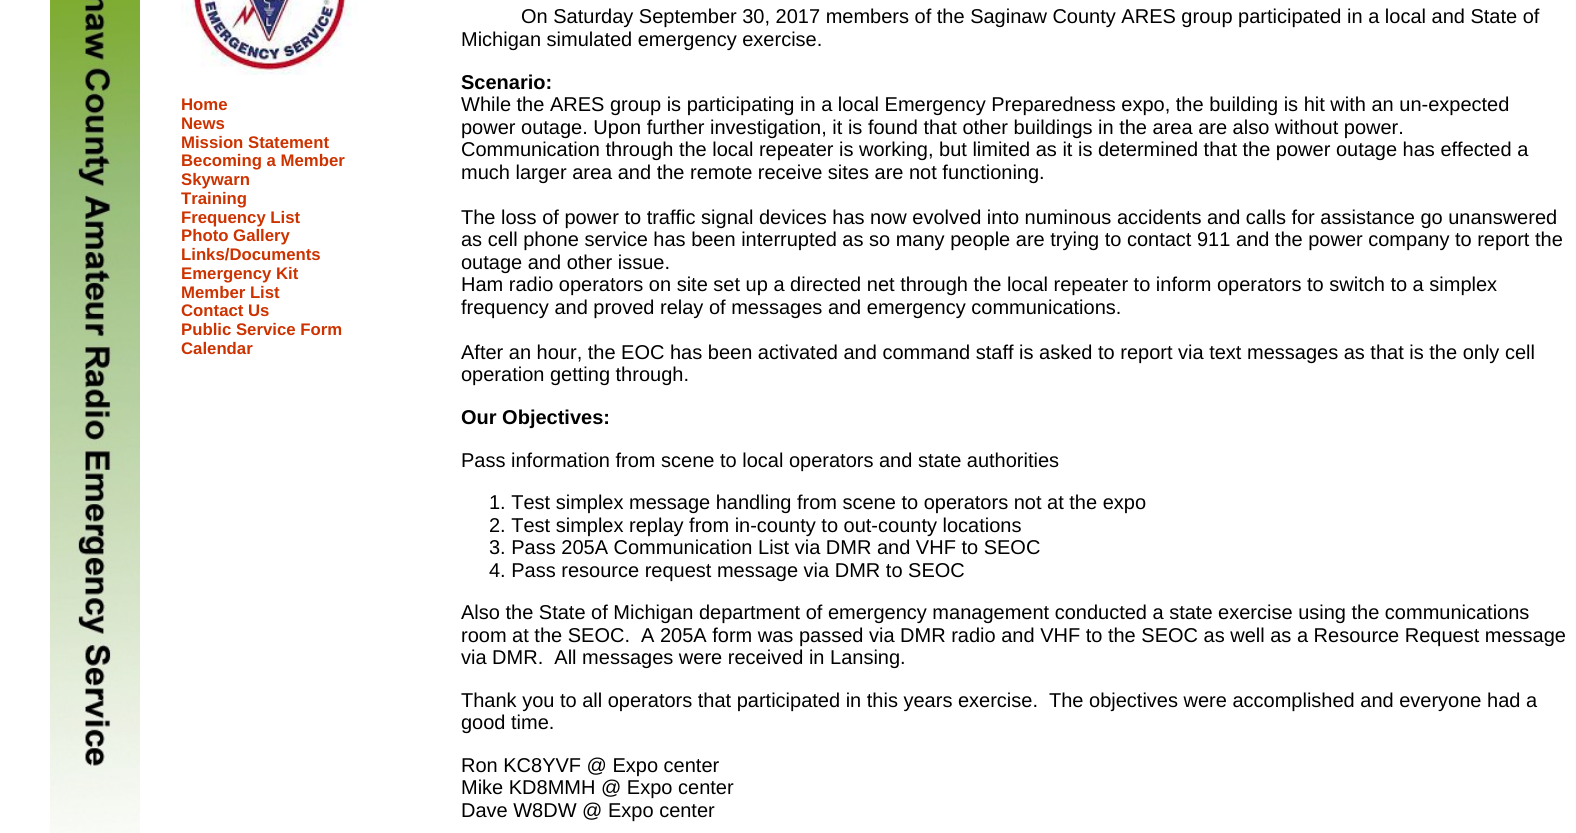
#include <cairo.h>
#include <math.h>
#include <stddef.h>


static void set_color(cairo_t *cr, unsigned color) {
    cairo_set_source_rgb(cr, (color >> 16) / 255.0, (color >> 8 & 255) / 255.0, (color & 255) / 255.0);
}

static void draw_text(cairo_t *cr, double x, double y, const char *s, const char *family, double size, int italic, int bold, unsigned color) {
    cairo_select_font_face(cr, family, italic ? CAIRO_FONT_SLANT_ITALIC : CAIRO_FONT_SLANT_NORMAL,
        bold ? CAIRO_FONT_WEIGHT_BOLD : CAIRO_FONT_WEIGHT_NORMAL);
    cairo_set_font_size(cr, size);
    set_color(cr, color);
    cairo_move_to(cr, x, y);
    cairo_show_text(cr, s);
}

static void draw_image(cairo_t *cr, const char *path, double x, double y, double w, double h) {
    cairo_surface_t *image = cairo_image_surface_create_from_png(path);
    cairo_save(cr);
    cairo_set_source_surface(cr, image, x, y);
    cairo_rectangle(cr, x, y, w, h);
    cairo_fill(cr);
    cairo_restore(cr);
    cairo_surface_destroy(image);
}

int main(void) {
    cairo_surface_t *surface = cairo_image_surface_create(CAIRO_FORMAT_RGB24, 1576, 833);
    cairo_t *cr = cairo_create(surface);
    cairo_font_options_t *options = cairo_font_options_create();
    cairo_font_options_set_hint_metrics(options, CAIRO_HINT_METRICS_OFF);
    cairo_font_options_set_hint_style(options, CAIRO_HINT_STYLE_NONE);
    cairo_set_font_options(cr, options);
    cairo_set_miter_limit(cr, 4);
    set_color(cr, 0xFFFFFF);
    cairo_paint(cr);
    draw_image(cr, "assets/img1.png", 50, 0, 90, 833);
    draw_image(cr, "assets/img2.png", 181, 0, 177, 75);
    draw_text(cr, 181, 110, "Home", "Liberation Sans", 16.75, 0, 1, 0xCC3300);
    draw_text(cr, 181, 129, "News", "Liberation Sans", 16.75, 0, 1, 0xCC3300);
    draw_text(cr, 181, 148, "Mission Statement", "Liberation Sans", 16.75, 0, 1, 0xCC3300);
    draw_text(cr, 181, 166, "Becoming a Member", "Liberation Sans", 16.75, 0, 1, 0xCC3300);
    draw_text(cr, 181, 185, "Skywarn", "Liberation Sans", 16.75, 0, 1, 0xCC3300);
    draw_text(cr, 181, 204, "Training", "Liberation Sans", 16.75, 0, 1, 0xCC3300);
    draw_text(cr, 181, 223, "Frequency List", "Liberation Sans", 16.75, 0, 1, 0xCC3300);
    draw_text(cr, 181, 241, "Photo Gallery", "Liberation Sans", 16.75, 0, 1, 0xCC3300);
    draw_text(cr, 181, 260, "Links/Documents", "Liberation Sans", 16.75, 0, 1, 0xCC3300);
    draw_text(cr, 181, 279, "Emergency Kit", "Liberation Sans", 16.75, 0, 1, 0xCC3300);
    draw_text(cr, 181, 298, "Member List", "Liberation Sans", 16.75, 0, 1, 0xCC3300);
    draw_text(cr, 181, 316, "Contact Us", "Liberation Sans", 16.75, 0, 1, 0xCC3300);
    draw_text(cr, 181, 335, "Public Service Form", "Liberation Sans", 16.75, 0, 1, 0xCC3300);
    draw_text(cr, 181, 354, "Calendar", "Liberation Sans", 16.75, 0, 1, 0xCC3300);
    draw_text(cr, 521, 23, "On Saturday September 30, 2017 members of the Saginaw County ARES group participated in a local and State of", "Liberation Sans", 20, 0, 0, 0x000000);
    draw_text(cr, 461, 46, "Michigan simulated emergency exercise.", "Liberation Sans", 20, 0, 0, 0x000000);
    draw_text(cr, 461, 89, "Scenario:", "Liberation Sans", 20, 0, 1, 0x000000);
    draw_text(cr, 461, 111, "While the ARES group is participating in a local Emergency Preparedness expo, the building is hit with an un-expected", "Liberation Sans", 20, 0, 0, 0x000000);
    draw_text(cr, 461, 134, "power outage. Upon further investigation, it is found that other buildings in the area are also without power.", "Liberation Sans", 20, 0, 0, 0x000000);
    draw_text(cr, 461, 156, "Communication through the local repeater is working, but limited as it is determined that the power outage has effected a", "Liberation Sans", 20, 0, 0, 0x000000);
    draw_text(cr, 461, 179, "much larger area and the remote receive sites are not functioning.", "Liberation Sans", 20, 0, 0, 0x000000);
    draw_text(cr, 461, 224, "The loss of power to traffic signal devices has now evolved into numinous accidents and calls for assistance go unanswered", "Liberation Sans", 20, 0, 0, 0x000000);
    draw_text(cr, 461, 246, "as cell phone service has been interrupted as so many people are trying to contact 911 and the power company to report the", "Liberation Sans", 20, 0, 0, 0x000000);
    draw_text(cr, 461, 269, "outage and other issue.", "Liberation Sans", 20, 0, 0, 0x000000);
    draw_text(cr, 461, 291, "Ham radio operators on site set up a directed net through the local repeater to inform operators to switch to a simplex", "Liberation Sans", 20, 0, 0, 0x000000);
    draw_text(cr, 461, 314, "frequency and proved relay of messages and emergency communications.", "Liberation Sans", 20, 0, 0, 0x000000);
    draw_text(cr, 461, 359, "After an hour, the EOC has been activated and command staff is asked to report via text messages as that is the only cell", "Liberation Sans", 20, 0, 0, 0x000000);
    draw_text(cr, 461, 381, "operation getting through.", "Liberation Sans", 20, 0, 0, 0x000000);
    draw_text(cr, 461, 424, "Our Objectives:", "Liberation Sans", 20, 0, 1, 0x000000);
    draw_text(cr, 461, 467, "Pass information from scene to local operators and state authorities", "Liberation Sans", 20, 0, 0, 0x000000);
    draw_text(cr, 489, 509, "1. Test simplex message handling from scene to operators not at the expo", "Liberation Sans", 20, 0, 0, 0x000000);
    draw_text(cr, 489, 532, "2. Test simplex replay from in-county to out-county locations", "Liberation Sans", 20, 0, 0, 0x000000);
    draw_text(cr, 489, 554, "3. Pass 205A Communication List via DMR and VHF to SEOC", "Liberation Sans", 20, 0, 0, 0x000000);
    draw_text(cr, 489, 577, "4. Pass resource request message via DMR to SEOC", "Liberation Sans", 20, 0, 0, 0x000000);
    draw_text(cr, 461, 619, "Also the State of Michigan department of emergency management conducted a state exercise using the communications", "Liberation Sans", 20, 0, 0, 0x000000);
    draw_text(cr, 461, 642, "room at the SEOC.  A 205A form was passed via DMR radio and VHF to the SEOC as well as a Resource Request message", "Liberation Sans", 20, 0, 0, 0x000000);
    draw_text(cr, 461, 664, "via DMR.  All messages were received in Lansing.", "Liberation Sans", 20, 0, 0, 0x000000);
    draw_text(cr, 461, 707, "Thank you to all operators that participated in this years exercise.", "Liberation Sans", 20, 0, 0, 0x000000);
    draw_text(cr, 1049, 707, "The objectives were accomplished and everyone had a", "Liberation Sans", 20, 0, 0, 0x000000);
    draw_text(cr, 461, 729, "good time.", "Liberation Sans", 20, 0, 0, 0x000000);
    draw_text(cr, 461, 772, "Ron KC8YVF @ Expo center", "Liberation Sans", 20, 0, 0, 0x000000);
    draw_text(cr, 461, 794, "Mike KD8MMH @ Expo center", "Liberation Sans", 20, 0, 0, 0x000000);
    draw_text(cr, 461, 817, "Dave W8DW @ Expo center", "Liberation Sans", 20, 0, 0, 0x000000);
    cairo_surface_write_to_png(surface, "output.png");
    cairo_font_options_destroy(options);
    cairo_destroy(cr);
    cairo_surface_destroy(surface);
    return 0;
}
